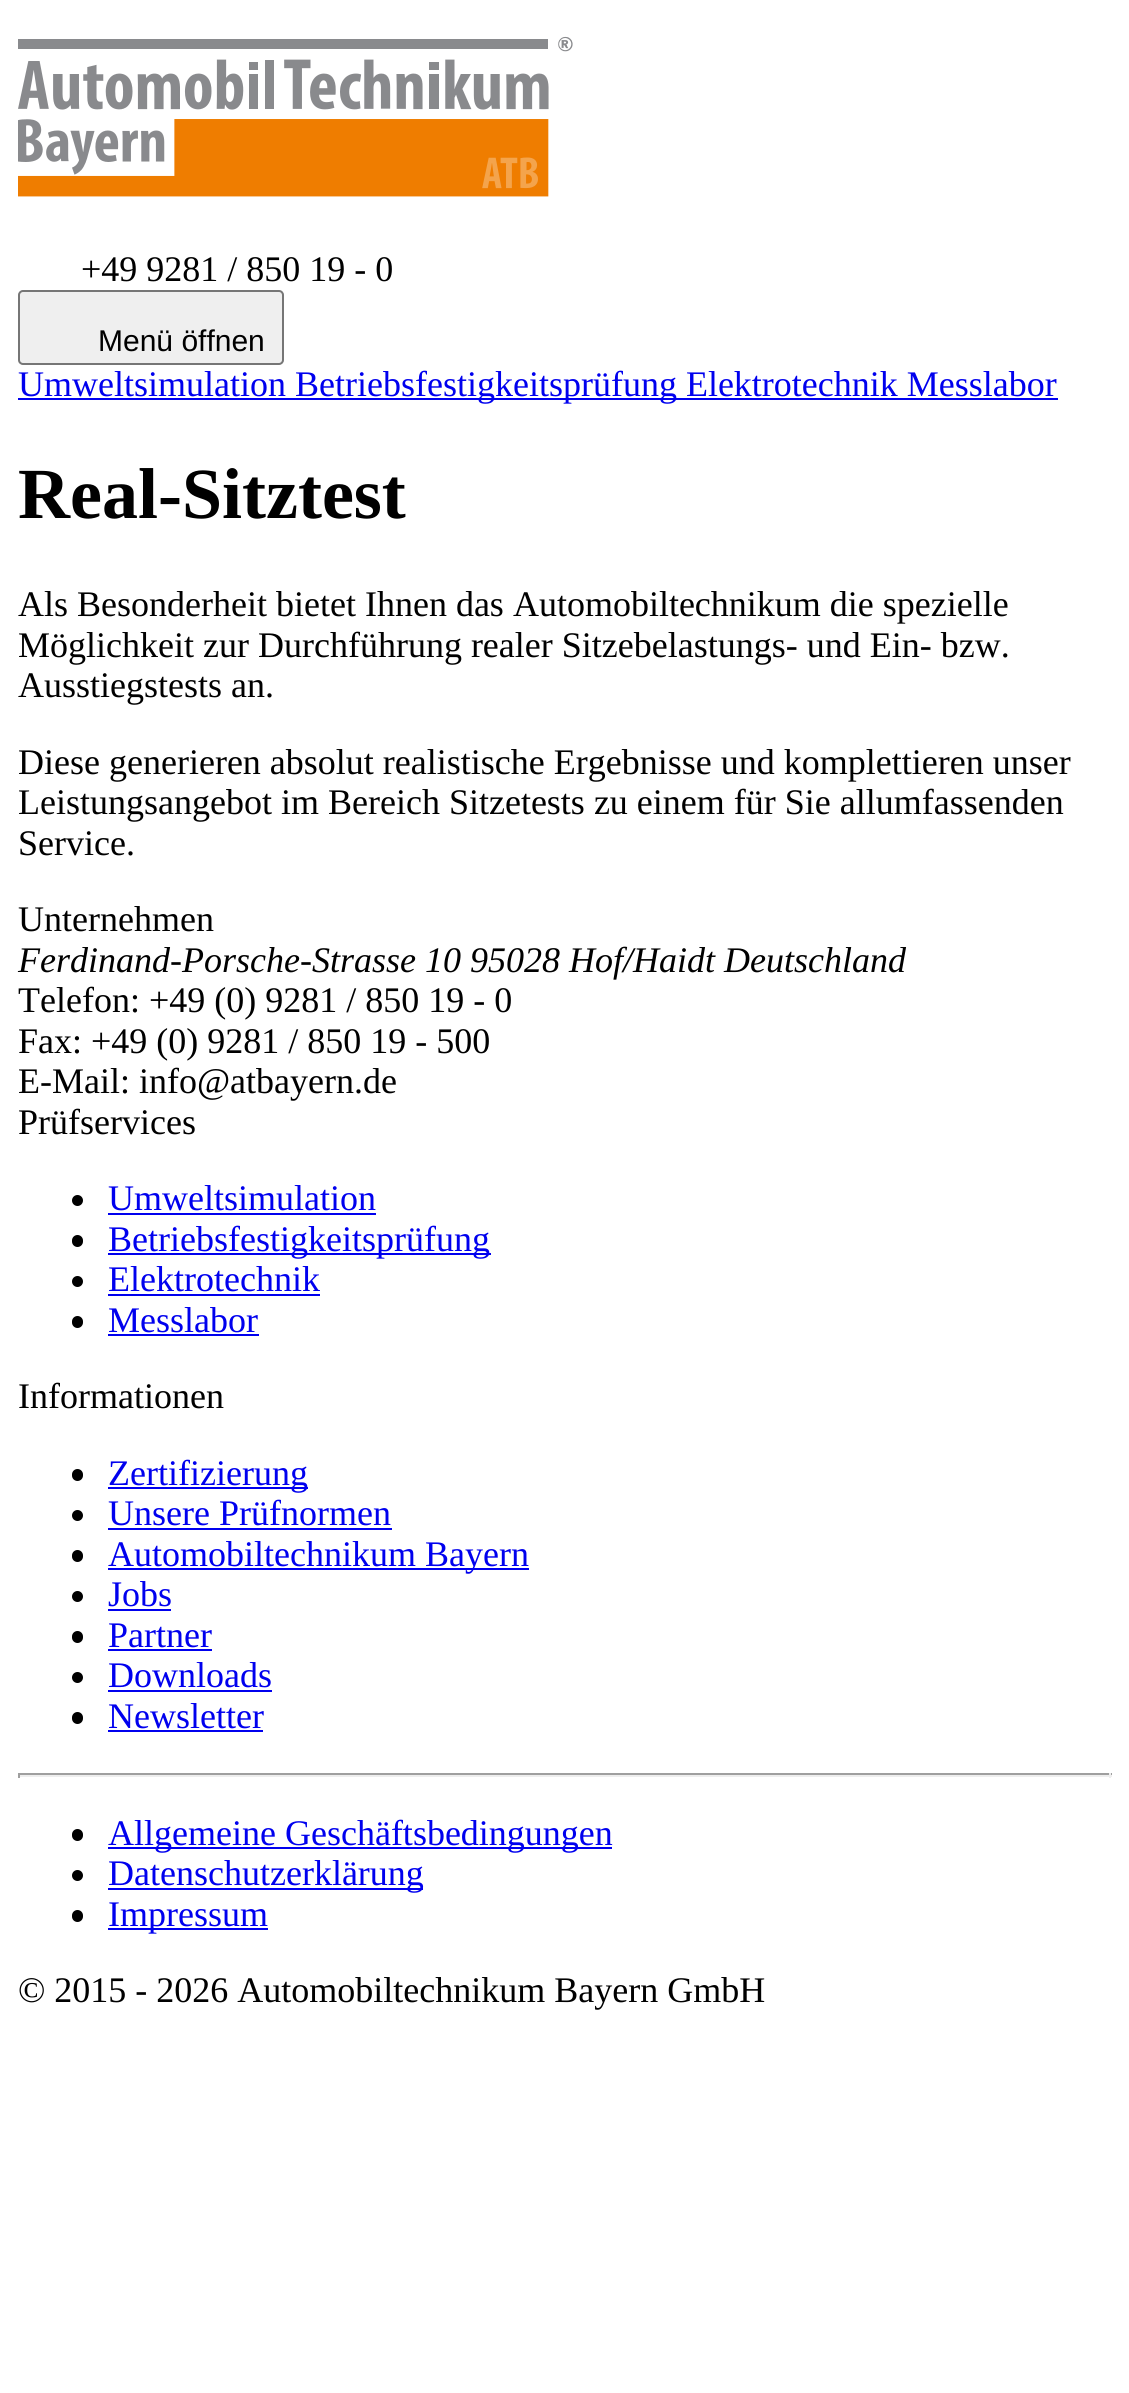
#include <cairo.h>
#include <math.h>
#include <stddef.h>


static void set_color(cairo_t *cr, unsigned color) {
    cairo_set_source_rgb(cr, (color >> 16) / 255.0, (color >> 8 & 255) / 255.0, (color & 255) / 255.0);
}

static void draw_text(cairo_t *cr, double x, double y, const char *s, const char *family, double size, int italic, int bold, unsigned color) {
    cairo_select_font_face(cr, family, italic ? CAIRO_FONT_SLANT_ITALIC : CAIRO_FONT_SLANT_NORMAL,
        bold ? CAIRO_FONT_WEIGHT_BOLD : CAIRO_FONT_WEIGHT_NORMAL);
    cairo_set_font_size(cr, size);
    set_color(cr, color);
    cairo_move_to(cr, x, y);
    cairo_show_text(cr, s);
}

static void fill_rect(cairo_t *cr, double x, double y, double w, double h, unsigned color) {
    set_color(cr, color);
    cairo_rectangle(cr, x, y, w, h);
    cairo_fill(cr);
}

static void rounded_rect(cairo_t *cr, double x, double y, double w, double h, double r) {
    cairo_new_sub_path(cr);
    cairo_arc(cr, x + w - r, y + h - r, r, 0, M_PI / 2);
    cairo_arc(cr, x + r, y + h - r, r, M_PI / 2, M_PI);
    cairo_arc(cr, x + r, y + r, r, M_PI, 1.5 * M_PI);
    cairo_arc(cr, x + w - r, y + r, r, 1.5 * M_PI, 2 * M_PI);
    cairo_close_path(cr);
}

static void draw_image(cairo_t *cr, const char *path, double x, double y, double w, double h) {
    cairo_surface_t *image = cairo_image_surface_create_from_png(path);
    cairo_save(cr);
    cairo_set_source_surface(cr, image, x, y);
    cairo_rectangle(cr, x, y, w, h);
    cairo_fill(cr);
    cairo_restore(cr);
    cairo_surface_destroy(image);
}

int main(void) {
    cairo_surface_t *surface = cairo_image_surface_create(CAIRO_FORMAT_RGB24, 1129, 2393);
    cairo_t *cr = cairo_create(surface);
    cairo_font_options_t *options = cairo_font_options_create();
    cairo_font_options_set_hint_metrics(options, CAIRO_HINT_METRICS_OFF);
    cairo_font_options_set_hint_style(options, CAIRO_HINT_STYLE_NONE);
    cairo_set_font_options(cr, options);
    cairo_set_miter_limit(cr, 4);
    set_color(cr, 0xFFFFFF);
    cairo_paint(cr);
    draw_image(cr, "assets/img1.png", 18, 36, 555, 161);
    draw_text(cr, 81, 281, "+49 9281 / 850 19 - 0", "Liberation Serif", 36, 0, 0, 0x000000);
    set_color(cr, 0xEFEFEF);
    rounded_rect(cr, 19, 291, 264, 73, 4);
    cairo_fill_preserve(cr);
    set_color(cr, 0x767676);
    cairo_stroke(cr);
    draw_text(cr, 98, 351, "Menü öffnen", "Liberation Sans", 30, 0, 0, 0x000000);
    fill_rect(cr, 18, 398, 1040, 2, 0x0000EE);
    draw_text(cr, 18, 396, "Umweltsimulation Betriebsfestigkeitsprüfung Elektrotechnik Messlabor", "Liberation Serif", 36, 0, 0, 0x0000EE);
    draw_text(cr, 18, 518, "Real-Sitztest", "Liberation Serif", 72, 0, 1, 0x000000);
    draw_text(cr, 18, 616, "Als Besonderheit bietet Ihnen das Automobiltechnikum die spezielle", "Liberation Serif", 36, 0, 0, 0x000000);
    draw_text(cr, 18, 657, "Möglichkeit zur Durchführung realer Sitzebelastungs- und Ein- bzw.", "Liberation Serif", 36, 0, 0, 0x000000);
    draw_text(cr, 18, 697, "Ausstiegstests an.", "Liberation Serif", 36, 0, 0, 0x000000);
    draw_text(cr, 18, 774, "Diese generieren absolut realistische Ergebnisse und komplettieren unser", "Liberation Serif", 36, 0, 0, 0x000000);
    draw_text(cr, 18, 814, "Leistungsangebot im Bereich Sitzetests zu einem für Sie allumfassenden", "Liberation Serif", 36, 0, 0, 0x000000);
    draw_text(cr, 18, 855, "Service.", "Liberation Serif", 36, 0, 0, 0x000000);
    draw_text(cr, 18, 931, "Unternehmen", "Liberation Serif", 36, 0, 0, 0x000000);
    draw_text(cr, 18, 972, "Ferdinand-Porsche-Strasse 10 95028 Hof/Haidt Deutschland", "Liberation Serif", 36, 1, 0, 0x000000);
    draw_text(cr, 18, 1012, "Telefon: +49 (0) 9281 / 850 19 - 0", "Liberation Serif", 36, 0, 0, 0x000000);
    draw_text(cr, 18, 1053, "Fax: +49 (0) 9281 / 850 19 - 500", "Liberation Serif", 36, 0, 0, 0x000000);
    draw_text(cr, 18, 1093, "E-Mail: info@atbayern.de", "Liberation Serif", 36, 0, 0, 0x000000);
    draw_text(cr, 18, 1134, "Prüfservices", "Liberation Serif", 36, 0, 0, 0x000000);
    cairo_new_path(cr);
    cairo_arc(cr, 77.5, 1200.5, 5.5, 0, 2 * M_PI);
    cairo_fill(cr);
    draw_text(cr, 108, 1210, "Umweltsimulation", "Liberation Serif", 36, 0, 0, 0x0000EE);
    fill_rect(cr, 108, 1213, 268, 2, 0x0000EE);
    set_color(cr, 0x000000);
    rounded_rect(cr, 72, 1235, 11, 12, 5.5);
    cairo_fill(cr);
    fill_rect(cr, 108, 1253, 383, 2, 0x0000EE);
    draw_text(cr, 108, 1251, "Betriebsfestigkeitsprüfung", "Liberation Serif", 36, 0, 0, 0x0000EE);
    set_color(cr, 0x000000);
    cairo_new_path(cr);
    cairo_arc(cr, 77.5, 1281.5, 5.5, 0, 2 * M_PI);
    cairo_fill(cr);
    draw_text(cr, 108, 1291, "Elektrotechnik", "Liberation Serif", 36, 0, 0, 0x0000EE);
    fill_rect(cr, 108, 1294, 212, 2, 0x0000EE);
    set_color(cr, 0x000000);
    rounded_rect(cr, 72, 1316, 11, 12, 5.5);
    cairo_fill(cr);
    draw_text(cr, 108, 1332, "Messlabor", "Liberation Serif", 36, 0, 0, 0x0000EE);
    fill_rect(cr, 108, 1334, 151, 2, 0x0000EE);
    draw_text(cr, 18, 1408, "Informationen", "Liberation Serif", 36, 0, 0, 0x000000);
    rounded_rect(cr, 72, 1469, 11, 12, 5.5);
    cairo_fill(cr);
    fill_rect(cr, 108, 1487, 200, 2, 0x0000EE);
    draw_text(cr, 108, 1485, "Zertifizierung", "Liberation Serif", 36, 0, 0, 0x0000EE);
    set_color(cr, 0x000000);
    cairo_new_path(cr);
    cairo_arc(cr, 77.5, 1515.5, 5.5, 0, 2 * M_PI);
    cairo_fill(cr);
    draw_text(cr, 108, 1525, "Unsere Prüfnormen", "Liberation Serif", 36, 0, 0, 0x0000EE);
    fill_rect(cr, 108, 1528, 284, 2, 0x0000EE);
    set_color(cr, 0x000000);
    rounded_rect(cr, 72, 1550, 11, 12, 5.5);
    cairo_fill(cr);
    fill_rect(cr, 108, 1568, 421, 2, 0x0000EE);
    draw_text(cr, 108, 1566, "Automobiltechnikum Bayern", "Liberation Serif", 36, 0, 0, 0x0000EE);
    set_color(cr, 0x000000);
    cairo_new_path(cr);
    cairo_arc(cr, 77.5, 1596.5, 5.5, 0, 2 * M_PI);
    cairo_fill(cr);
    draw_text(cr, 108, 1606, "Jobs", "Liberation Serif", 36, 0, 0, 0x0000EE);
    fill_rect(cr, 108, 1609, 63, 2, 0x0000EE);
    set_color(cr, 0x000000);
    rounded_rect(cr, 72, 1631, 11, 12, 5.5);
    cairo_fill(cr);
    draw_text(cr, 108, 1647, "Partner", "Liberation Serif", 36, 0, 0, 0x0000EE);
    fill_rect(cr, 108, 1649, 104, 2, 0x0000EE);
    set_color(cr, 0x000000);
    cairo_new_path(cr);
    cairo_arc(cr, 77.5, 1677.5, 5.5, 0, 2 * M_PI);
    cairo_fill(cr);
    draw_text(cr, 108, 1687, "Downloads", "Liberation Serif", 36, 0, 0, 0x0000EE);
    fill_rect(cr, 108, 1690, 164, 2, 0x0000EE);
    set_color(cr, 0x000000);
    rounded_rect(cr, 72, 1712, 11, 12, 5.5);
    cairo_fill(cr);
    draw_text(cr, 108, 1728, "Newsletter", "Liberation Serif", 36, 0, 0, 0x0000EE);
    fill_rect(cr, 108, 1730, 155, 2, 0x0000EE);
    fill_rect(cr, 18, 1773, 1094, 2, 0x9F9F9F);
    fill_rect(cr, 1109, 1773, 2, 5, 0xEEEEEE);
    fill_rect(cr, 18, 1775, 1094, 2, 0xEEEEEE);
    fill_rect(cr, 18, 1773, 2, 5, 0x9F9F9F);
    set_color(cr, 0x000000);
    rounded_rect(cr, 72, 1829, 11, 12, 5.5);
    cairo_fill(cr);
    fill_rect(cr, 108, 1847, 504, 2, 0x0000EE);
    draw_text(cr, 108, 1845, "Allgemeine Geschäftsbedingungen", "Liberation Serif", 36, 0, 0, 0x0000EE);
    set_color(cr, 0x000000);
    cairo_new_path(cr);
    cairo_arc(cr, 77.5, 1875.5, 5.5, 0, 2 * M_PI);
    cairo_fill(cr);
    fill_rect(cr, 108, 1888, 315, 2, 0x0000EE);
    draw_text(cr, 108, 1885, "Datenschutzerklärung", "Liberation Serif", 36, 0, 0, 0x0000EE);
    set_color(cr, 0x000000);
    rounded_rect(cr, 72, 1910, 11, 12, 5.5);
    cairo_fill(cr);
    fill_rect(cr, 108, 1928, 160, 2, 0x0000EE);
    draw_text(cr, 108, 1926, "Impressum", "Liberation Serif", 36, 0, 0, 0x0000EE);
    draw_text(cr, 18, 2002, "© 2015 - 2026 Automobiltechnikum Bayern GmbH", "Liberation Serif", 36, 0, 0, 0x000000);
    cairo_surface_write_to_png(surface, "output.png");
    cairo_font_options_destroy(options);
    cairo_destroy(cr);
    cairo_surface_destroy(surface);
    return 0;
}
